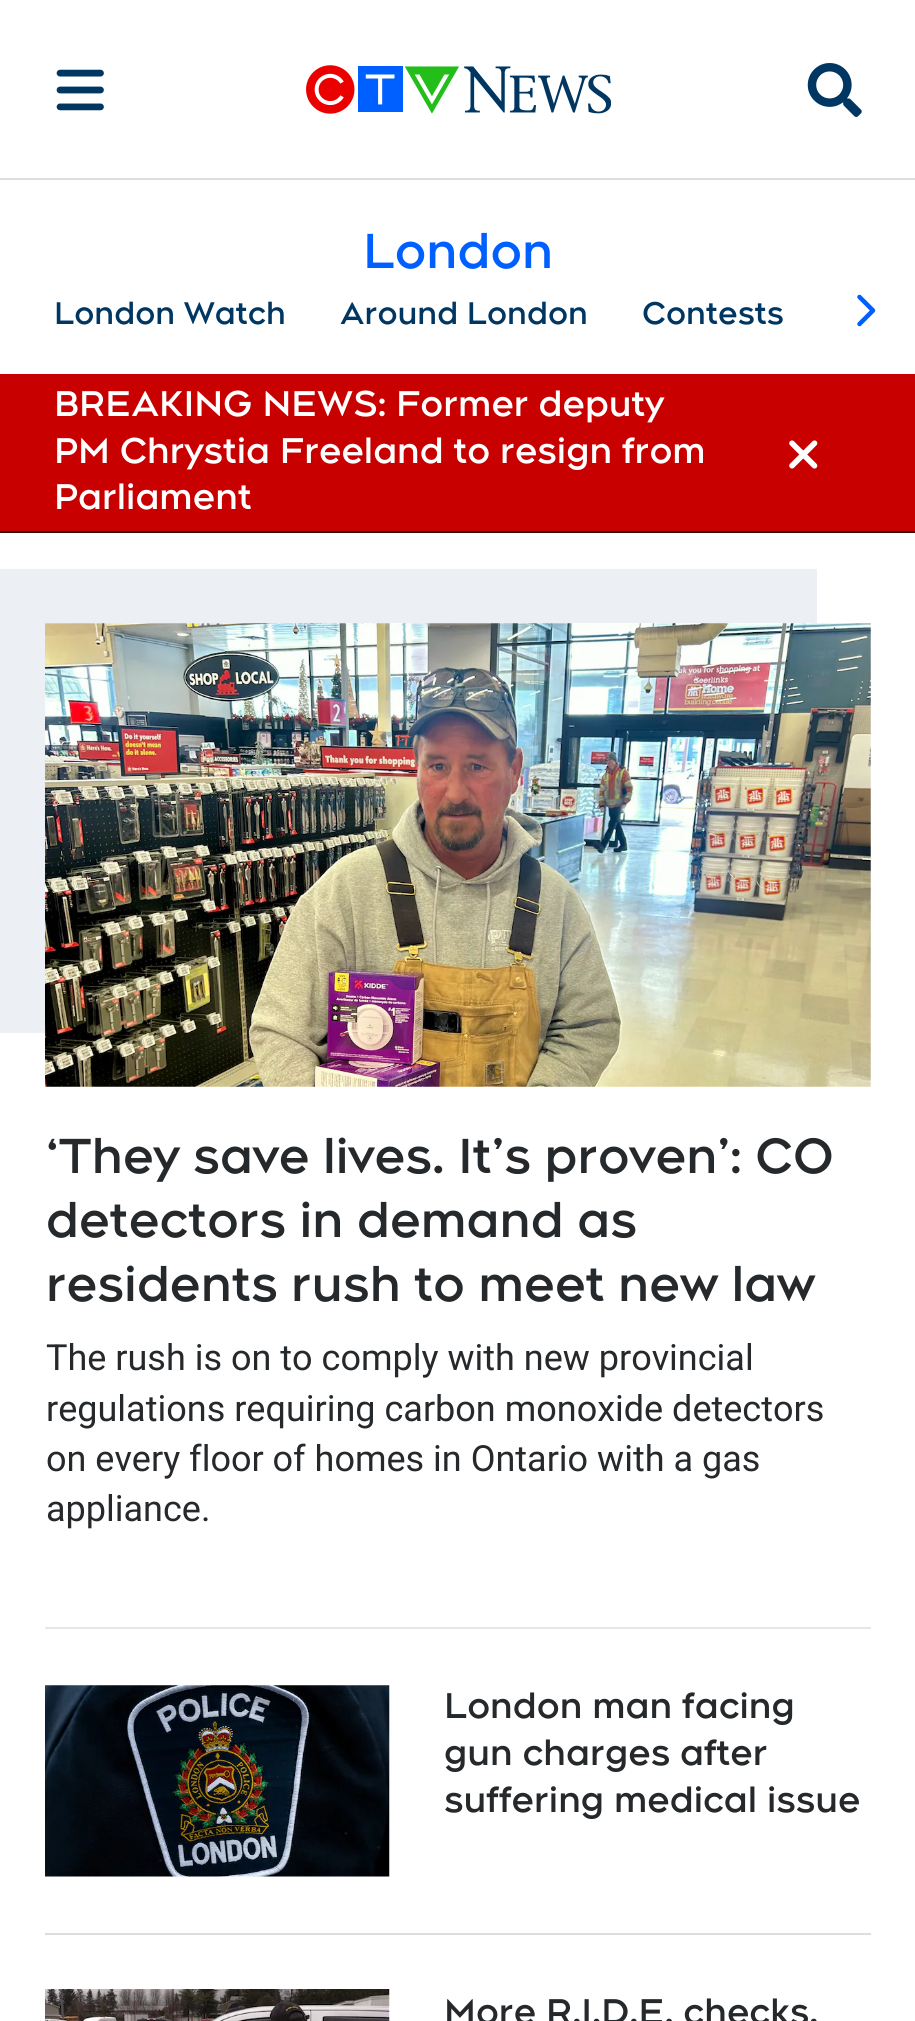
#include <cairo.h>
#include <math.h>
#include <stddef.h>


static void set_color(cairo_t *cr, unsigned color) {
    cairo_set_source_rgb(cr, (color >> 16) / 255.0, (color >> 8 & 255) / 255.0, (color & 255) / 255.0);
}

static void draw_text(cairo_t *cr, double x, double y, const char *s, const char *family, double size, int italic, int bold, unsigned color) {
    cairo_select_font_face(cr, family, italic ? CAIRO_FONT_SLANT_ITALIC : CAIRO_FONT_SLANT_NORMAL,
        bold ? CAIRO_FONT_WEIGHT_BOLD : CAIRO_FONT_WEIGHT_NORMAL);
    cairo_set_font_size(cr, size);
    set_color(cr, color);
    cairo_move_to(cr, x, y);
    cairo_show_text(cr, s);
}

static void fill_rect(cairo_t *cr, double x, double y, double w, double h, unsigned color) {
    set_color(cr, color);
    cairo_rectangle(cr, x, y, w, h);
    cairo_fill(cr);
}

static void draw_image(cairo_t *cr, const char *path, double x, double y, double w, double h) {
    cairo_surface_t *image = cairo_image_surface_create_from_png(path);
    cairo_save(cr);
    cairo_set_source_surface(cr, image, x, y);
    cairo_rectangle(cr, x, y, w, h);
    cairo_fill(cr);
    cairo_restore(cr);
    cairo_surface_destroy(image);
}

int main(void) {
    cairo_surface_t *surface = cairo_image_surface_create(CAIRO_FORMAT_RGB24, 915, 2021);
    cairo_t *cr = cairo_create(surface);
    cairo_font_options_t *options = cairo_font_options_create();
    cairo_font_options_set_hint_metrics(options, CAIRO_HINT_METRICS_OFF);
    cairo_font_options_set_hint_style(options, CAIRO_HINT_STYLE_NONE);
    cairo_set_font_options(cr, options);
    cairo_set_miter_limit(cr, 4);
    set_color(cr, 0xFFFFFF);
    cairo_paint(cr);
    fill_rect(cr, 0, 178, 915, 2, 0xDDDDDD);
    draw_image(cr, "assets/img1.png", 56, 69, 48, 42);
    draw_image(cr, "assets/img2.png", 306, 65, 305, 49);
    draw_image(cr, "assets/img3.png", 807, 63, 55, 54);
    draw_text(cr, 363, 268, "London", "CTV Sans", 49.5, 0, 1, 0x005FFF);
    draw_text(cr, 54, 324, "London Watch", "CTV Sans", 31.5, 0, 1, 0x003662);
    draw_text(cr, 340, 324, "Around London", "CTV Sans", 31.5, 0, 1, 0x003662);
    draw_text(cr, 642, 324, "Contests", "CTV Sans", 31.5, 0, 1, 0x003662);
    draw_image(cr, "assets/img4.png", 857, 294, 19, 33);
    fill_rect(cr, 0, 374, 915, 157, 0xC80000);
    fill_rect(cr, 0, 531, 915, 2, 0x370A00);
    draw_text(cr, 54, 416, "BREAKING NEWS: Former deputy", "CTV Sans", 36, 0, 1, 0xFFFFFF);
    draw_text(cr, 54, 463, "PM Chrystia Freeland to resign from", "CTV Sans", 36, 0, 1, 0xFFFFFF);
    draw_text(cr, 54, 509, "Parliament", "CTV Sans", 36, 0, 1, 0xFFFFFF);
    draw_image(cr, "assets/img5.png", 789, 440, 29, 29);
    set_color(cr, 0xECEFF3);
    cairo_new_path(cr);
    cairo_move_to(cr, -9, 569);
    cairo_line_to(cr, -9, 1033);
    cairo_line_to(cr, 45, 1033);
    cairo_line_to(cr, 45, 623);
    cairo_line_to(cr, 817, 623);
    cairo_line_to(cr, 817, 569);
    cairo_close_path(cr);
    cairo_fill(cr);
    draw_image(cr, "assets/img6.png", 45, 623, 826, 464);
    draw_text(cr, 46, 1173, "‘They save lives. It’s proven’: CO", "CTV Sans", 49.5, 0, 1, 0x26292B);
    draw_text(cr, 46, 1237, "detectors in demand as", "CTV Sans", 49.5, 0, 1, 0x26292B);
    draw_text(cr, 46, 1301, "residents rush to meet new law", "CTV Sans", 49.5, 0, 1, 0x26292B);
    draw_text(cr, 46, 1370, "The rush is on to comply with new provincial", "Roboto", 36, 0, 0, 0x26292B);
    draw_text(cr, 46, 1421, "regulations requiring carbon monoxide detectors", "Roboto", 36, 0, 0, 0x26292B);
    draw_text(cr, 46, 1471, "on every floor of homes in Ontario with a gas", "Roboto", 36, 0, 0, 0x26292B);
    draw_text(cr, 46, 1521, "appliance.", "Roboto", 36, 0, 0, 0x26292B);
    fill_rect(cr, 45, 1627, 826, 2, 0xE6E6E6);
    draw_image(cr, "assets/img7.png", 45, 1685, 345, 192);
    draw_text(cr, 444, 1718, "London man facing", "CTV Sans", 36, 0, 1, 0x26292B);
    draw_text(cr, 444, 1765, "gun charges after", "CTV Sans", 36, 0, 1, 0x26292B);
    draw_text(cr, 444, 1812, "suffering medical issue", "CTV Sans", 36, 0, 1, 0x26292B);
    fill_rect(cr, 45, 1933, 826, 2, 0xDDDDDD);
    draw_image(cr, "assets/img8.png", 45, 1989, 345, 32);
    draw_text(cr, 444, 2024, "More R.I.D.E. checks,", "CTV Sans", 36, 0, 1, 0x26292B);
    cairo_surface_write_to_png(surface, "output.png");
    cairo_font_options_destroy(options);
    cairo_destroy(cr);
    cairo_surface_destroy(surface);
    return 0;
}
